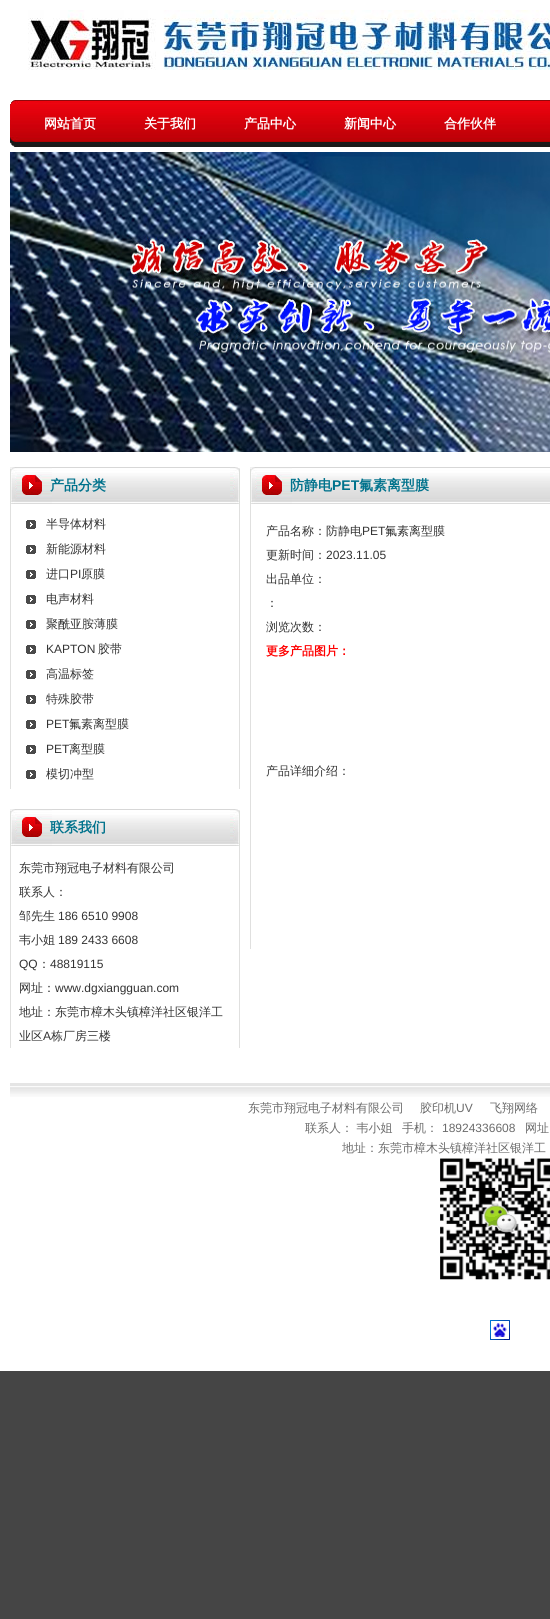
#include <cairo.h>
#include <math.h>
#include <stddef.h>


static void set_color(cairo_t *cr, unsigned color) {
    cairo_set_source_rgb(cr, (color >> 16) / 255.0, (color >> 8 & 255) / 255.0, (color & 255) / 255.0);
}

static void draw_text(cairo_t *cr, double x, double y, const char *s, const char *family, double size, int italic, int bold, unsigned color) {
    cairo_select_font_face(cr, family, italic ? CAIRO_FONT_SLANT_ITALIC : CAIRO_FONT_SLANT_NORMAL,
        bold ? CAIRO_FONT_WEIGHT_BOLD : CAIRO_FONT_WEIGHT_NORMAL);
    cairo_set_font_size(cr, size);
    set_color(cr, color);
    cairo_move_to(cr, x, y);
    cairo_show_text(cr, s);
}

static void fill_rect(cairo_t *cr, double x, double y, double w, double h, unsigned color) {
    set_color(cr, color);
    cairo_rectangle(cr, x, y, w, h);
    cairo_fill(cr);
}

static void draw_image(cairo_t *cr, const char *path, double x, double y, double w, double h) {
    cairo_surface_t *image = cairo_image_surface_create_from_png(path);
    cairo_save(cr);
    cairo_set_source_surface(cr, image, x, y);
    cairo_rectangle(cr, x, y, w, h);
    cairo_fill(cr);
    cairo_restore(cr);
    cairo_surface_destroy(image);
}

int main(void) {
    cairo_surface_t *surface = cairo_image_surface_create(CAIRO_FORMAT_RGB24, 550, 1619);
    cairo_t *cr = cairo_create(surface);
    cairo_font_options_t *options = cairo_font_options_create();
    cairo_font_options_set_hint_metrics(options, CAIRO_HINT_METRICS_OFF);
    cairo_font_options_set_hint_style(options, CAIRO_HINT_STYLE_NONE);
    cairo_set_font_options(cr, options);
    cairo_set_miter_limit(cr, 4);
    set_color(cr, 0x454545);
    cairo_paint(cr);
    fill_rect(cr, 0, 0, 550, 1371, 0xFFFFFF);
    draw_image(cr, "assets/img1.png", 28, 10, 522, 60);
    draw_image(cr, "assets/img2.png", 10, 100, 540, 47);
    draw_text(cr, 44, 128, "网站首页", "WenQuanYi Zen Hei", 13, 0, 1, 0xFFFFFF);
    draw_text(cr, 144, 128, "关于我们", "WenQuanYi Zen Hei", 13, 0, 1, 0xFFFFFF);
    draw_text(cr, 244, 128, "产品中心", "WenQuanYi Zen Hei", 13, 0, 1, 0xFFFFFF);
    draw_text(cr, 344, 128, "新闻中心", "WenQuanYi Zen Hei", 13, 0, 1, 0xFFFFFF);
    draw_text(cr, 444, 128, "合作伙伴", "WenQuanYi Zen Hei", 13, 0, 1, 0xFFFFFF);
    draw_image(cr, "assets/img3.png", 10, 152, 540, 300);
    draw_image(cr, "assets/img4.png", 10, 467, 220, 37);
    draw_text(cr, 50, 490, "产品分类", "WenQuanYi Zen Hei", 14, 0, 1, 0x00728C);
    draw_image(cr, "assets/img5.png", 230, 467, 10, 37);
    fill_rect(cr, 239, 504, 1, 285, 0xE0E0DF);
    fill_rect(cr, 10, 504, 1, 285, 0xE0E0DF);
    draw_image(cr, "assets/img6.png", 26, 520, 10, 9);
    draw_text(cr, 46, 528, "半导体材料", "WenQuanYi Zen Hei Medium", 12, 0, 0, 0x333333);
    draw_image(cr, "assets/img6.png", 26, 545, 10, 9);
    draw_text(cr, 46, 553, "新能源材料", "WenQuanYi Zen Hei Medium", 12, 0, 0, 0x333333);
    draw_image(cr, "assets/img6.png", 26, 570, 10, 9);
    draw_text(cr, 46, 578, "进口", "WenQuanYi Zen Hei Medium", 12, 0, 0, 0x333333);
    draw_text(cr, 70, 578, "PI", "Liberation Sans", 12, 0, 0, 0x333333);
    draw_text(cr, 81, 578, "原膜", "WenQuanYi Zen Hei Medium", 12, 0, 0, 0x333333);
    draw_image(cr, "assets/img6.png", 26, 595, 10, 9);
    draw_text(cr, 46, 603, "电声材料", "WenQuanYi Zen Hei Medium", 12, 0, 0, 0x333333);
    draw_image(cr, "assets/img6.png", 26, 620, 10, 9);
    draw_text(cr, 46, 628, "聚酰亚胺薄膜", "WenQuanYi Zen Hei Medium", 12, 0, 0, 0x333333);
    draw_image(cr, "assets/img6.png", 26, 645, 10, 9);
    draw_text(cr, 46, 653, "KAPTON", "Liberation Sans", 12, 0, 0, 0x333333);
    draw_text(cr, 98, 653, "胶带", "WenQuanYi Zen Hei Medium", 12, 0, 0, 0x333333);
    draw_image(cr, "assets/img6.png", 26, 670, 10, 9);
    draw_text(cr, 46, 678, "高温标签", "WenQuanYi Zen Hei Medium", 12, 0, 0, 0x333333);
    draw_image(cr, "assets/img6.png", 26, 695, 10, 9);
    draw_text(cr, 46, 703, "特殊胶带", "WenQuanYi Zen Hei Medium", 12, 0, 0, 0x333333);
    draw_image(cr, "assets/img6.png", 26, 720, 10, 9);
    draw_text(cr, 46, 728, "PET", "Liberation Sans", 12, 0, 0, 0x333333);
    draw_text(cr, 69, 728, "氟素离型膜", "WenQuanYi Zen Hei Medium", 12, 0, 0, 0x333333);
    draw_image(cr, "assets/img6.png", 26, 745, 10, 9);
    draw_text(cr, 46, 753, "PET", "Liberation Sans", 12, 0, 0, 0x333333);
    draw_text(cr, 69, 753, "离型膜", "WenQuanYi Zen Hei Medium", 12, 0, 0, 0x333333);
    draw_image(cr, "assets/img6.png", 26, 770, 10, 9);
    draw_text(cr, 46, 778, "模切冲型", "WenQuanYi Zen Hei Medium", 12, 0, 0, 0x333333);
    draw_image(cr, "assets/img4.png", 10, 809, 220, 37);
    draw_text(cr, 50, 832, "联系我们", "WenQuanYi Zen Hei", 14, 0, 1, 0x00728C);
    draw_image(cr, "assets/img5.png", 230, 809, 10, 37);
    fill_rect(cr, 239, 846, 1, 202, 0xE0E0DF);
    fill_rect(cr, 10, 846, 1, 202, 0xE0E0DF);
    draw_text(cr, 19, 872, "东莞市翔冠电子材料有限公司", "WenQuanYi Zen Hei Medium", 12, 0, 0, 0x333333);
    draw_text(cr, 19, 896, "联系人：", "WenQuanYi Zen Hei Medium", 12, 0, 0, 0x333333);
    draw_text(cr, 19, 920, "邹先生", "WenQuanYi Zen Hei Medium", 12, 0, 0, 0x333333);
    draw_text(cr, 58, 920, "186 6510 9908", "Liberation Sans", 12, 0, 0, 0x333333);
    draw_text(cr, 19, 944, "韦小姐", "WenQuanYi Zen Hei Medium", 12, 0, 0, 0x333333);
    draw_text(cr, 58, 944, "189 2433 6608", "Liberation Sans", 12, 0, 0, 0x333333);
    draw_text(cr, 19, 968, "QQ", "Liberation Sans", 12, 0, 0, 0x333333);
    draw_text(cr, 38, 968, "：", "WenQuanYi Zen Hei Medium", 12, 0, 0, 0x333333);
    draw_text(cr, 50, 968, "48819115", "Liberation Sans", 12, 0, 0, 0x333333);
    draw_text(cr, 19, 992, "网址：", "WenQuanYi Zen Hei Medium", 12, 0, 0, 0x333333);
    draw_text(cr, 55, 992, "www.dgxiangguan.com", "Liberation Sans", 12, 0, 0, 0x333333);
    draw_text(cr, 19, 1016, "地址：东莞市樟木头镇樟洋社区银洋工", "WenQuanYi Zen Hei Medium", 12, 0, 0, 0x333333);
    draw_text(cr, 19, 1040, "业区", "WenQuanYi Zen Hei Medium", 12, 0, 0, 0x333333);
    draw_text(cr, 43, 1040, "A", "Liberation Sans", 12, 0, 0, 0x333333);
    draw_text(cr, 51, 1040, "栋厂房三楼", "WenQuanYi Zen Hei Medium", 12, 0, 0, 0x333333);
    draw_image(cr, "assets/img7.png", 250, 467, 300, 37);
    draw_text(cr, 290, 490, "防静电", "WenQuanYi Zen Hei", 14, 0, 1, 0x00728C);
    draw_text(cr, 332, 490, "PET", "Liberation Sans", 14, 0, 1, 0x00728C);
    draw_text(cr, 359, 490, "氟素离型膜", "WenQuanYi Zen Hei", 14, 0, 1, 0x00728C);
    fill_rect(cr, 250, 504, 1, 445, 0xE0E0DF);
    draw_text(cr, 266, 535, "产品名称：防静电", "WenQuanYi Zen Hei Medium", 12, 0, 0, 0x333333);
    draw_text(cr, 362, 535, "PET", "Liberation Sans", 12, 0, 0, 0x333333);
    draw_text(cr, 385, 535, "氟素离型膜", "WenQuanYi Zen Hei Medium", 12, 0, 0, 0x333333);
    draw_text(cr, 266, 559, "更新时间：", "WenQuanYi Zen Hei Medium", 12, 0, 0, 0x333333);
    draw_text(cr, 326, 559, "2023.11.05", "Liberation Sans", 12, 0, 0, 0x333333);
    draw_text(cr, 266, 583, "出品单位：", "WenQuanYi Zen Hei Medium", 12, 0, 0, 0x333333);
    draw_text(cr, 266, 607, "：", "WenQuanYi Zen Hei Medium", 12, 0, 0, 0x333333);
    draw_text(cr, 266, 631, "浏览次数：", "WenQuanYi Zen Hei Medium", 12, 0, 0, 0x333333);
    draw_text(cr, 266, 655, "更多产品图片：", "WenQuanYi Zen Hei", 12, 0, 1, 0xFF0000);
    draw_text(cr, 266, 775, "产品详细介绍：", "WenQuanYi Zen Hei Medium", 12, 0, 0, 0x333333);
    draw_image(cr, "assets/img8.png", 10, 1083, 540, 14);
    draw_text(cr, 248, 1112, "东莞市翔冠电子材料有限公司", "WenQuanYi Zen Hei Medium", 12, 0, 0, 0x6B6B6B);
    draw_text(cr, 420, 1112, "胶印机", "WenQuanYi Zen Hei Medium", 12, 0, 0, 0x6B6B6B);
    draw_text(cr, 456, 1112, "UV", "Liberation Sans", 12, 0, 0, 0x6B6B6B);
    draw_text(cr, 490, 1112, "飞翔网络", "WenQuanYi Zen Hei Medium", 12, 0, 0, 0x6B6B6B);
    draw_text(cr, 305, 1132, "联系人： 韦小姐", "WenQuanYi Zen Hei Medium", 12, 0, 0, 0x6B6B6B);
    draw_text(cr, 402, 1132, "手机：", "WenQuanYi Zen Hei Medium", 12, 0, 0, 0x6B6B6B);
    draw_text(cr, 442, 1132, "18924336608", "Liberation Sans", 12, 0, 0, 0x6B6B6B);
    draw_text(cr, 525, 1132, "网址", "WenQuanYi Zen Hei Medium", 12, 0, 0, 0x6B6B6B);
    draw_text(cr, 342, 1152, "地址：东莞市樟木头镇樟洋社区银洋工", "WenQuanYi Zen Hei Medium", 12, 0, 0, 0x6B6B6B);
    draw_image(cr, "assets/img9.png", 440, 1158, 110, 122);
    draw_image(cr, "assets/img10.png", 490, 1320, 20, 20);
    cairo_surface_write_to_png(surface, "output.png");
    cairo_font_options_destroy(options);
    cairo_destroy(cr);
    cairo_surface_destroy(surface);
    return 0;
}
